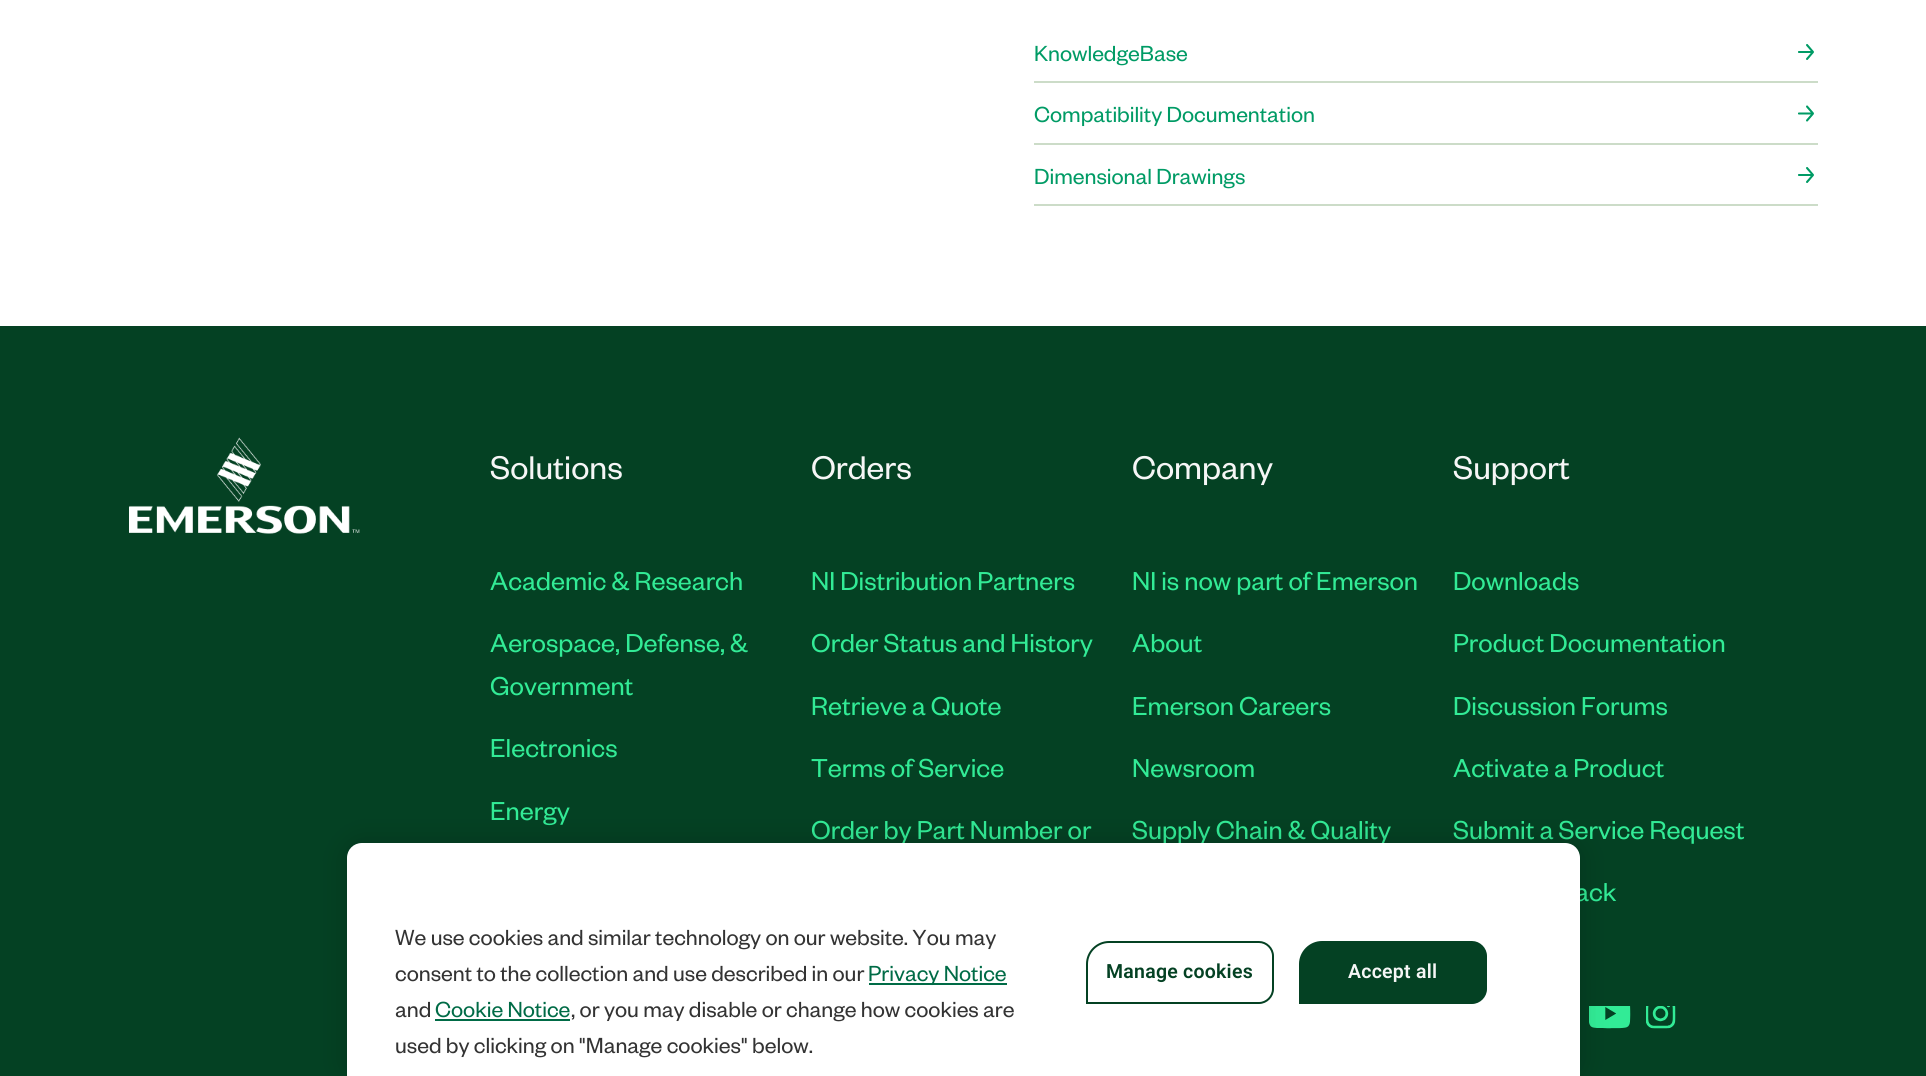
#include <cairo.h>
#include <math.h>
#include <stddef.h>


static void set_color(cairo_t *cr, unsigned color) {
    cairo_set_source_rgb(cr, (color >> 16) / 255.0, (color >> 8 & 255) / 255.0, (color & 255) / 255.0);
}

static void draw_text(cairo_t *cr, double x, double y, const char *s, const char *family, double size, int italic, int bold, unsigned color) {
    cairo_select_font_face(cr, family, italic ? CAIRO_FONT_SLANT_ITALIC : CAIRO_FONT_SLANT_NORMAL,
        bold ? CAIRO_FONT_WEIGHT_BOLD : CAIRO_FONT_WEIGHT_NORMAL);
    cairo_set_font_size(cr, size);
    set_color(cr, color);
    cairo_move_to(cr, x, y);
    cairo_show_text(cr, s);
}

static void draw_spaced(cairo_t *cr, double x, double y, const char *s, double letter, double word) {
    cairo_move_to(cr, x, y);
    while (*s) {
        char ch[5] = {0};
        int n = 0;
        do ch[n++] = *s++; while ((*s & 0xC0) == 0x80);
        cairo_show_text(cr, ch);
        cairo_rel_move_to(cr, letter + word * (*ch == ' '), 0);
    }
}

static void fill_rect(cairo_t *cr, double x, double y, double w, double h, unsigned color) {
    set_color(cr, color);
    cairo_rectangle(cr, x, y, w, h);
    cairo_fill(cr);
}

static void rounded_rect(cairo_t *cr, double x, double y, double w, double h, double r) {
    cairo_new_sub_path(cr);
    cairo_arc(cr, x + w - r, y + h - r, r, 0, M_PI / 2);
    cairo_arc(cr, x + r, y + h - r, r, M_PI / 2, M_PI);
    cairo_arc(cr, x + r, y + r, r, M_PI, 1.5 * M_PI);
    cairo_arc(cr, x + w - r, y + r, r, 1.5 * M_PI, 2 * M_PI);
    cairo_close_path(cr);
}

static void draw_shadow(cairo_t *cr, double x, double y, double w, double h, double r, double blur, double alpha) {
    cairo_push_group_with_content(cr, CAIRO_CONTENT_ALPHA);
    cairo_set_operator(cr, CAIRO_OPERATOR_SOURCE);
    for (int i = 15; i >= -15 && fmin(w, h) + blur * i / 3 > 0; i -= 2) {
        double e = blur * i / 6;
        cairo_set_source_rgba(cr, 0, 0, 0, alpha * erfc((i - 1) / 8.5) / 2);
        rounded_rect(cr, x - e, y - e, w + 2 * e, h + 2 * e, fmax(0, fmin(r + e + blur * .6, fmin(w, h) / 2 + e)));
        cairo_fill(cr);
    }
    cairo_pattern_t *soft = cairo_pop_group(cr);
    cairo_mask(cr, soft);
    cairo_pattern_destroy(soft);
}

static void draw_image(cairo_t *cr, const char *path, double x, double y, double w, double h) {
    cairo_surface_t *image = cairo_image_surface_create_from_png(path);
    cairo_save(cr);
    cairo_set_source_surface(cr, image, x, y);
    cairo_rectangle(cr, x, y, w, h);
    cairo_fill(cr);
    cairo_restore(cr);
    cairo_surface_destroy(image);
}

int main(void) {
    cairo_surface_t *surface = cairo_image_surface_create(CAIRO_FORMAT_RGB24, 1926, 1076);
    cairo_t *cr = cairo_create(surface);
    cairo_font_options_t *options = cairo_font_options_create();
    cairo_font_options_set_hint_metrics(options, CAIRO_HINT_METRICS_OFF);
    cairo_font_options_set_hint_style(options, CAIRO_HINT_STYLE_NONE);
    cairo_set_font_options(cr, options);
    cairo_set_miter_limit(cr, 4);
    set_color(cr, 0xFFFFFF);
    cairo_paint(cr);
    fill_rect(cr, 1034, 81, 784, 2, 0xCCDCC8);
    draw_text(cr, 1034, 61, "KnowledgeBase", "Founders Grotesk", 24, 0, 0, 0x009B65);
    draw_image(cr, "assets/img1.png", 1798, 44, 16, 16);
    fill_rect(cr, 1034, 143, 784, 2, 0xCCDCC8);
    draw_text(cr, 1034, 122, "Compatibility Documentation", "Founders Grotesk", 24, 0, 0, 0x009B65);
    draw_image(cr, "assets/img2.png", 1798, 105, 16, 17);
    fill_rect(cr, 1034, 204, 784, 2, 0xCCDCC8);
    draw_text(cr, 1034, 184, "Dimensional Drawings", "Founders Grotesk", 24, 0, 0, 0x009B65);
    draw_image(cr, "assets/img1.png", 1798, 167, 16, 16);
    fill_rect(cr, 0, 326, 1926, 750, 0x044123);
    draw_image(cr, "assets/img3.png", 129, 437, 231, 97);
    draw_text(cr, 490, 479, "Solutions", "Founders Grotesk", 36, 0, 0, 0xF6F6F6);
    draw_text(cr, 490, 590, "Academic & Research", "Founders Grotesk", 28.5, 0, 0, 0x32EB96);
    draw_text(cr, 490, 652, "Aerospace, Defense, &", "Founders Grotesk", 28.5, 0, 0, 0x32EB96);
    draw_text(cr, 490, 695, "Government", "Founders Grotesk", 28.5, 0, 0, 0x32EB96);
    draw_text(cr, 490, 757, "Electronics", "Founders Grotesk", 28.5, 0, 0, 0x32EB96);
    draw_text(cr, 490, 820, "Energy", "Founders Grotesk", 28.5, 0, 0, 0x32EB96);
    draw_text(cr, 811, 479, "Orders", "Founders Grotesk", 36, 0, 0, 0xF6F6F6);
    draw_text(cr, 811, 590, "NI Distribution Partners", "Founders Grotesk", 28.5, 0, 0, 0x32EB96);
    draw_text(cr, 811, 652, "Order Status and History", "Founders Grotesk", 28.5, 0, 0, 0x32EB96);
    draw_text(cr, 811, 715, "Retrieve a Quote", "Founders Grotesk", 28.5, 0, 0, 0x32EB96);
    draw_text(cr, 811, 777, "Terms of Service", "Founders Grotesk", 28.5, 0, 0, 0x32EB96);
    draw_text(cr, 811, 839, "Order by Part Number or", "Founders Grotesk", 28.5, 0, 0, 0x32EB96);
    draw_text(cr, 1132, 479, "Company", "Founders Grotesk", 36, 0, 0, 0xF6F6F6);
    draw_text(cr, 1132, 590, "NI is now part of Emerson", "Founders Grotesk", 28.5, 0, 0, 0x32EB96);
    draw_text(cr, 1132, 652, "About", "Founders Grotesk", 28.5, 0, 0, 0x32EB96);
    draw_text(cr, 1132, 715, "Emerson Careers", "Founders Grotesk", 28.5, 0, 0, 0x32EB96);
    draw_text(cr, 1132, 777, "Newsroom", "Founders Grotesk", 28.5, 0, 0, 0x32EB96);
    draw_text(cr, 1132, 839, "Supply Chain & Quality", "Founders Grotesk", 28.5, 0, 0, 0x32EB96);
    draw_text(cr, 1453, 479, "Support", "Founders Grotesk", 36, 0, 0, 0xF6F6F6);
    draw_text(cr, 1453, 590, "Downloads", "Founders Grotesk", 28.5, 0, 0, 0x32EB96);
    draw_text(cr, 1453, 652, "Product Documentation", "Founders Grotesk", 28.5, 0, 0, 0x32EB96);
    draw_text(cr, 1453, 715, "Discussion Forums", "Founders Grotesk", 28.5, 0, 0, 0x32EB96);
    draw_text(cr, 1453, 777, "Activate a Product", "Founders Grotesk", 28.5, 0, 0, 0x32EB96);
    draw_text(cr, 1453, 839, "Submit a Service Request", "Founders Grotesk", 28.5, 0, 0, 0x32EB96);
    draw_text(cr, 1575, 901, "ack", "Founders Grotesk", 28.5, 0, 0, 0x32EB96);
    draw_image(cr, "assets/img4.png", 1589, 1006, 42, 23);
    draw_image(cr, "assets/img5.png", 1646, 1006, 30, 23);
    set_color(cr, 0x000000);
    draw_shadow(cr, 347, 843, 1233, 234, 15, 13.5, 0.2);
    set_color(cr, 0xFFFFFF);
    cairo_new_path(cr);
    cairo_move_to(cr, 362, 843);
    cairo_line_to(cr, 1565, 843);
    cairo_curve_to(cr, 1573.5, 843, 1580, 849.5, 1580, 858);
    cairo_line_to(cr, 1580, 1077);
    cairo_line_to(cr, 347, 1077);
    cairo_line_to(cr, 347, 858);
    cairo_curve_to(cr, 347, 849.5, 353.5, 843, 362, 843);
    cairo_close_path(cr);
    cairo_fill(cr);
    draw_text(cr, 395, 945, "We use cookies and similar technology on our website. You may", "Founders Grotesk", 24, 0, 0, 0x333333);
    draw_text(cr, 395, 981, "consent to the collection and use described in our", "Founders Grotesk", 24, 0, 0, 0x333333);
    fill_rect(cr, 869, 983, 138, 2, 0x006B46);
    draw_text(cr, 868, 981, "Privacy Notice", "Founders Grotesk", 24, 0, 0, 0x006B46);
    draw_text(cr, 395, 1017, "and", "Founders Grotesk", 24, 0, 0, 0x333333);
    draw_text(cr, 435, 1017, "Cookie Notice", "Founders Grotesk", 24, 0, 0, 0x006B46);
    fill_rect(cr, 435, 1019, 135, 2, 0x006B46);
    draw_text(cr, 571, 1017, ", or you may disable or change how cookies are", "Founders Grotesk", 24, 0, 0, 0x333333);
    draw_text(cr, 395, 1053, "used by clicking on \"Manage cookies\" below.", "Founders Grotesk", 24, 0, 0, 0x333333);
    cairo_new_path(cr);
    cairo_move_to(cr, 1109, 942);
    cairo_line_to(cr, 1259, 942);
    cairo_curve_to(cr, 1266.5, 942, 1273, 948.5, 1273, 956);
    cairo_line_to(cr, 1273, 989);
    cairo_curve_to(cr, 1273, 996.5, 1266.5, 1003, 1259, 1003);
    cairo_line_to(cr, 1087, 1003);
    cairo_line_to(cr, 1087, 964);
    cairo_curve_to(cr, 1087, 952, 1097, 942, 1109, 942);
    cairo_close_path(cr);
    set_color(cr, 0x044123);
    cairo_stroke(cr);
    cairo_select_font_face(cr, "Roboto SemiBold", CAIRO_FONT_SLANT_NORMAL, CAIRO_FONT_WEIGHT_NORMAL);
    cairo_set_font_size(cr, 19.5);
    draw_spaced(cr, 1106, 978, "Manage cookies", 0.25, 0);
    cairo_new_path(cr);
    cairo_move_to(cr, 1322, 942);
    cairo_line_to(cr, 1472, 942);
    cairo_curve_to(cr, 1479.5, 942, 1486, 948.5, 1486, 956);
    cairo_line_to(cr, 1486, 989);
    cairo_curve_to(cr, 1486, 996.5, 1479.5, 1003, 1472, 1003);
    cairo_line_to(cr, 1300, 1003);
    cairo_line_to(cr, 1300, 964);
    cairo_curve_to(cr, 1300, 952, 1310, 942, 1322, 942);
    cairo_close_path(cr);
    cairo_fill_preserve(cr);
    cairo_stroke(cr);
    set_color(cr, 0xF6F6F6);
    draw_spaced(cr, 1348, 978, "Accept all", 0.25, 0);
    cairo_surface_write_to_png(surface, "output.png");
    cairo_font_options_destroy(options);
    cairo_destroy(cr);
    cairo_surface_destroy(surface);
    return 0;
}
